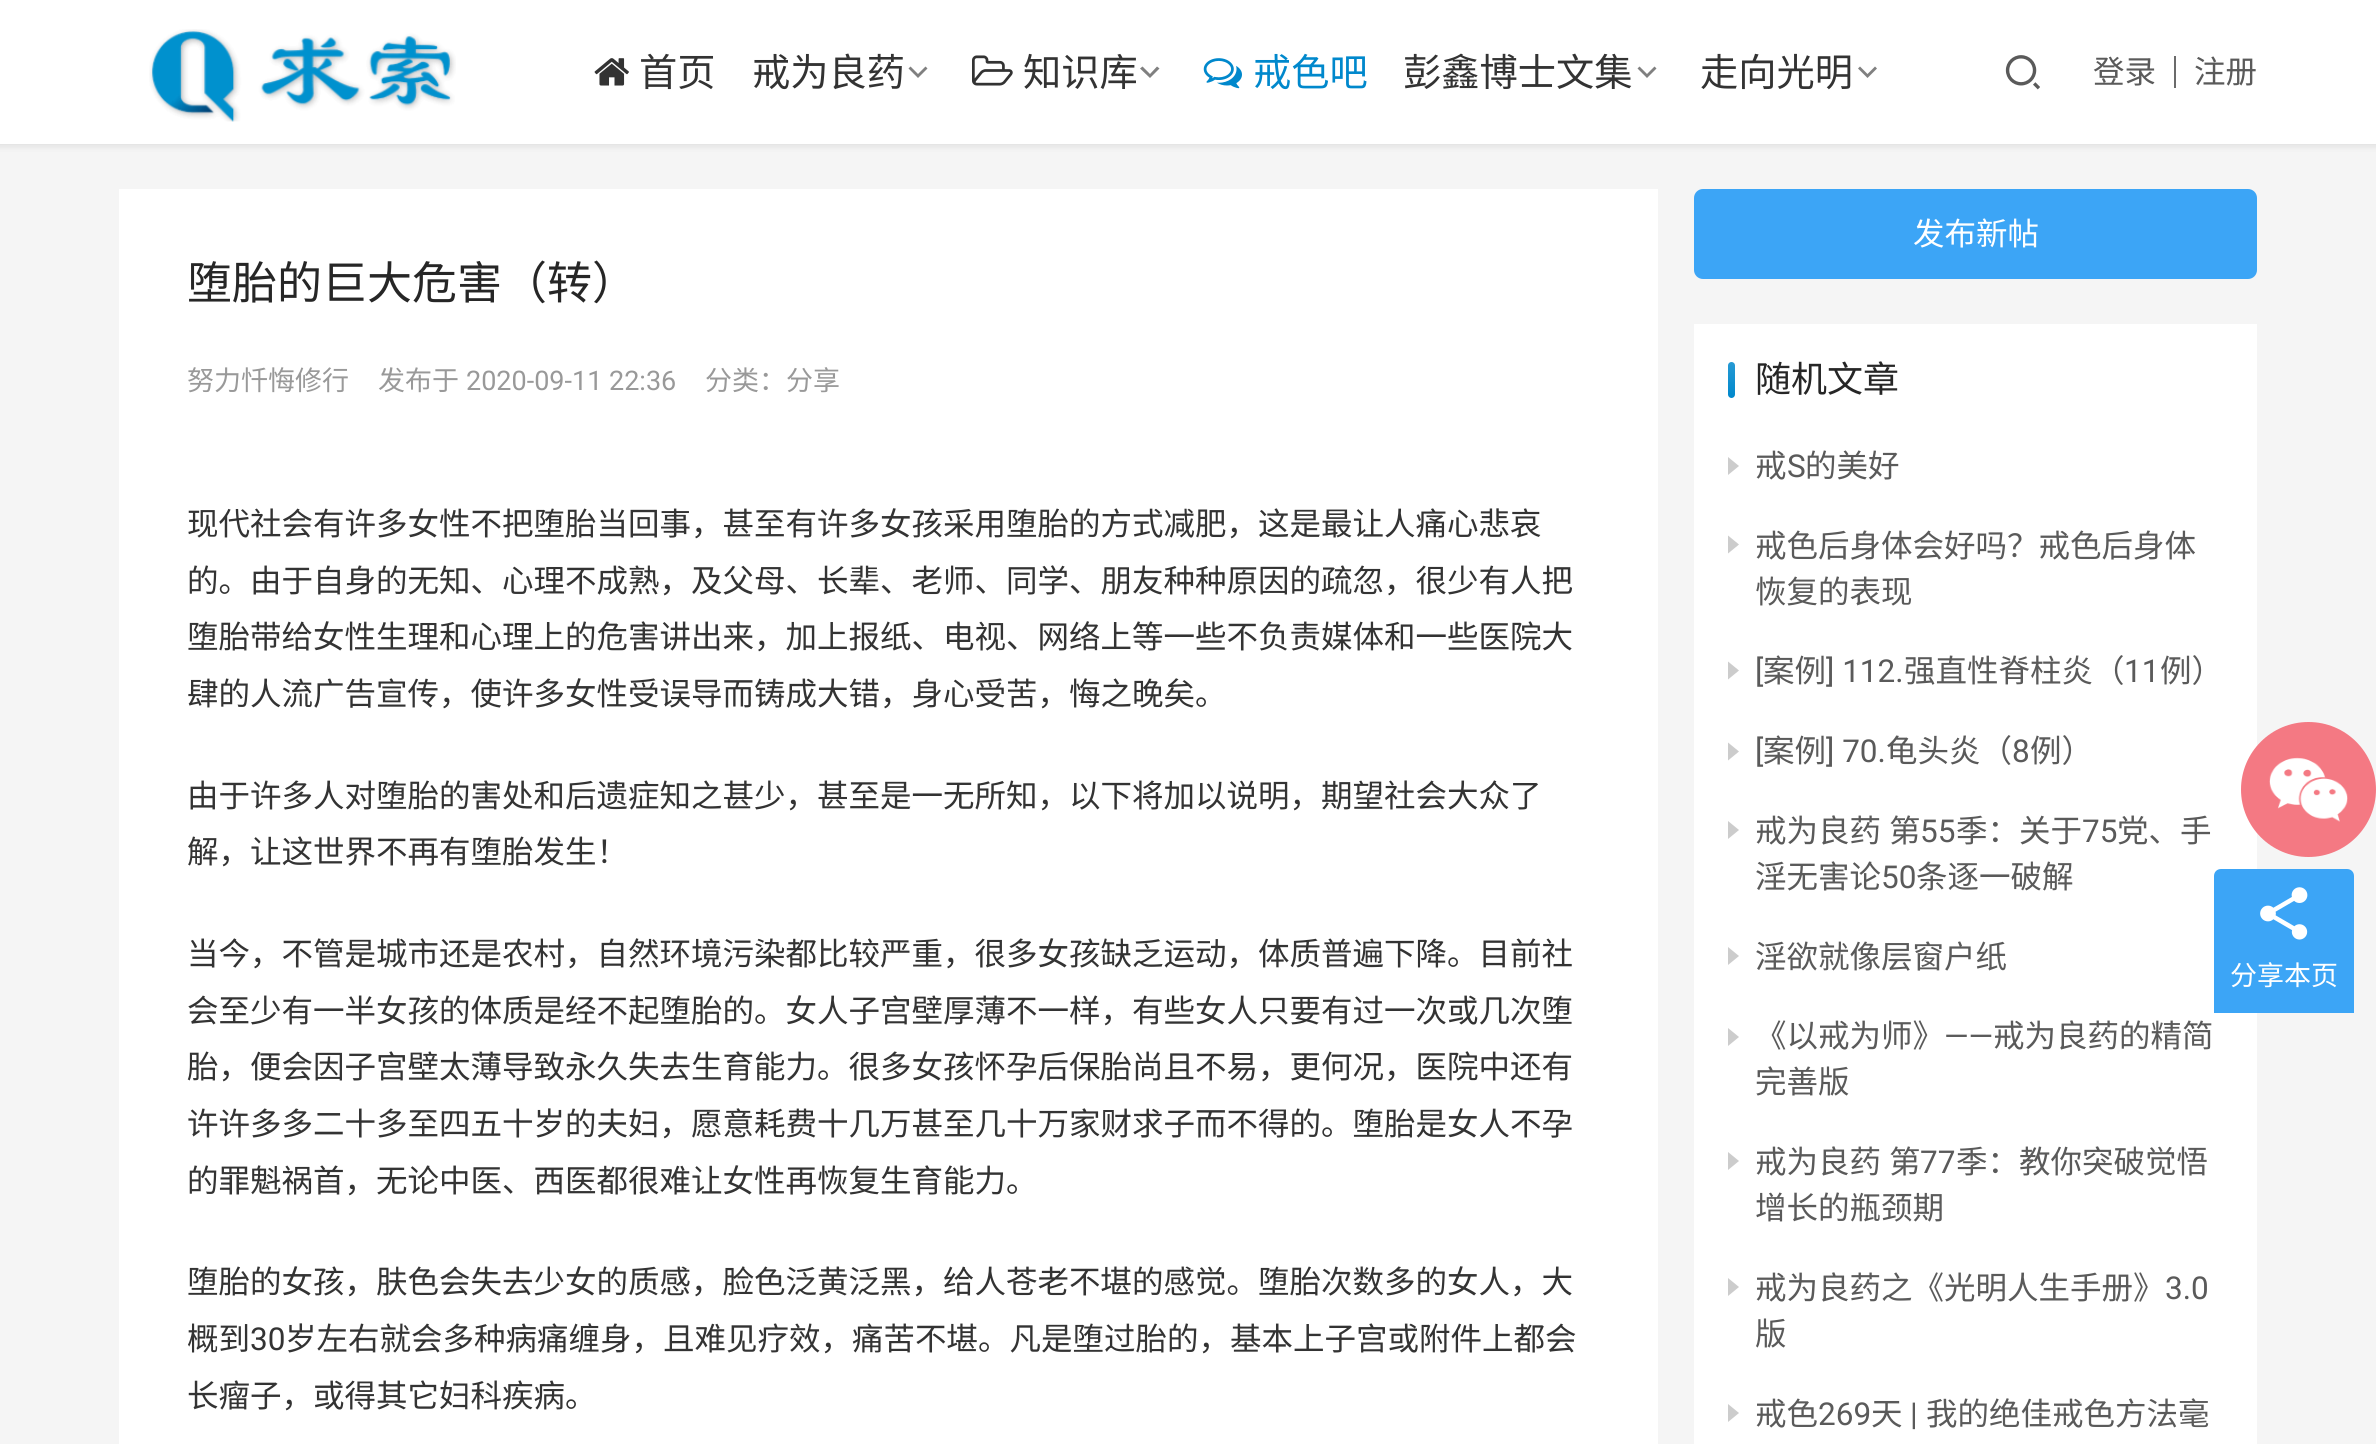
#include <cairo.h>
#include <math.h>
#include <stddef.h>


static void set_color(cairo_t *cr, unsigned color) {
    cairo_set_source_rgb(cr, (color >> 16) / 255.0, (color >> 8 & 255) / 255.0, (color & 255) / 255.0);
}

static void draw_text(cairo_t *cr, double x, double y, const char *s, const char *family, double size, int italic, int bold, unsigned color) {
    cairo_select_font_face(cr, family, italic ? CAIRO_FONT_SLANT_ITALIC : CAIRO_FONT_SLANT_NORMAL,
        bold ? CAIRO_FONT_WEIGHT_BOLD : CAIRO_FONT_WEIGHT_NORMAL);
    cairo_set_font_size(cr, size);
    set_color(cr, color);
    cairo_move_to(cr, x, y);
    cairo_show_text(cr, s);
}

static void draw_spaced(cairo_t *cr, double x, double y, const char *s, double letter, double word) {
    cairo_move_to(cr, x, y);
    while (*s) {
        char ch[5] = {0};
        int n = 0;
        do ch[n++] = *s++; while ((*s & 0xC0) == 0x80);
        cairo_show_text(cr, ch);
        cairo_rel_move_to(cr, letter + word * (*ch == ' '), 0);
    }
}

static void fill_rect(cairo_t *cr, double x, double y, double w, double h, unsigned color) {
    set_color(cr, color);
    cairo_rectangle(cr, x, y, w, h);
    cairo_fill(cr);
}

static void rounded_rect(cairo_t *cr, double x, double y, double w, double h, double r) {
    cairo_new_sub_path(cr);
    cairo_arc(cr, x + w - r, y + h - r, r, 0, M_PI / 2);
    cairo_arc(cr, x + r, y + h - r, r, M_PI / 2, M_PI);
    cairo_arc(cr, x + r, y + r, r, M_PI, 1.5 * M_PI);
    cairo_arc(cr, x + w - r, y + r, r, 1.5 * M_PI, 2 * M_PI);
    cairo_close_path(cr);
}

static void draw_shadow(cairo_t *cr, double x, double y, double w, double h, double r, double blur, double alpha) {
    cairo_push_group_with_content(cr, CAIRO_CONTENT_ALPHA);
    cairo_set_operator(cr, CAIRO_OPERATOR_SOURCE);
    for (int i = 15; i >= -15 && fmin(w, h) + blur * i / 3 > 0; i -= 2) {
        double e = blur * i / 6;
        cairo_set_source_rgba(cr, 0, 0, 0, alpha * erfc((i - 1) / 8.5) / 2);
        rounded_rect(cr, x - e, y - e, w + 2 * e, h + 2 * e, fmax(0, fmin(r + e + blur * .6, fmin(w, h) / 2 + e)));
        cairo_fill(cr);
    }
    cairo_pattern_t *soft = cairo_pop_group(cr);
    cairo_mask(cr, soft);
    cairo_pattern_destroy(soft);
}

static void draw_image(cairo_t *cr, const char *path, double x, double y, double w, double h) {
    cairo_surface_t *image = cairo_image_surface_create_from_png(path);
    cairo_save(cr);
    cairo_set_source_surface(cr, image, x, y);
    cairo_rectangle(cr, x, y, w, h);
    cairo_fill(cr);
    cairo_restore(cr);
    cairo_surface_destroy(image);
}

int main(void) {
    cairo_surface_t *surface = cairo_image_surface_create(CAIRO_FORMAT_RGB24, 2376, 1444);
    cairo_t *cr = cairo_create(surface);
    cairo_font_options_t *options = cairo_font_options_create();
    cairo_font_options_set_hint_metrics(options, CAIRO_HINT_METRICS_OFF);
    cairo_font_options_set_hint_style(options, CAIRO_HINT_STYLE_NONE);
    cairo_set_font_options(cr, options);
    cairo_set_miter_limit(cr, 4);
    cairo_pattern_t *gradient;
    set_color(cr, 0xF5F5F5);
    cairo_paint(cr);
    set_color(cr, 0x000000);
    draw_shadow(cr, -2, -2, 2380, 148, 0, 3.5, 0.1);
    fill_rect(cr, 0, 0, 2376, 144, 0xFFFFFF);
    draw_image(cr, "assets/img1.png", 149, 29, 307, 93);
    draw_image(cr, "assets/img2.png", 594, 58, 35, 28);
    draw_text(cr, 639, 86, "首页", "Noto Sans CJK SC", 38.25, 0, 0, 0x333333);
    draw_text(cr, 752, 86, "戒为良药", "Noto Sans CJK SC", 38.25, 0, 0, 0x333333);
    set_color(cr, 0x808080);
    cairo_new_path(cr);
    cairo_move_to(cr, 918, 74);
    cairo_line_to(cr, 925.5, 66.5);
    cairo_line_to(cr, 927.5, 68.5);
    cairo_line_to(cr, 918, 78);
    cairo_line_to(cr, 908.5, 68.5);
    cairo_line_to(cr, 910.5, 66.5);
    cairo_close_path(cr);
    cairo_fill(cr);
    draw_image(cr, "assets/img3.png", 972, 55, 41, 31);
    draw_text(cr, 1023, 86, "知识库", "Noto Sans CJK SC", 38.25, 0, 0, 0x333333);
    set_color(cr, 0x808080);
    cairo_new_path(cr);
    cairo_move_to(cr, 1150, 74);
    cairo_line_to(cr, 1157, 66.5);
    cairo_line_to(cr, 1159.5, 68.5);
    cairo_line_to(cr, 1150, 78);
    cairo_line_to(cr, 1140, 68.5);
    cairo_line_to(cr, 1142.5, 66.5);
    cairo_close_path(cr);
    cairo_fill(cr);
    draw_image(cr, "assets/img4.png", 1203, 58, 39, 31);
    draw_text(cr, 1253, 86, "戒色吧", "Noto Sans CJK SC", 38.25, 0, 0, 0x0088CC);
    draw_text(cr, 1403, 86, "彭鑫博士文集", "Noto Sans CJK SC", 38.25, 0, 0, 0x333333);
    set_color(cr, 0x808080);
    cairo_new_path(cr);
    cairo_move_to(cr, 1647, 74);
    cairo_line_to(cr, 1654.5, 66.5);
    cairo_line_to(cr, 1656.5, 68.5);
    cairo_line_to(cr, 1647, 78);
    cairo_line_to(cr, 1637.5, 68.5);
    cairo_line_to(cr, 1639.5, 66.5);
    cairo_close_path(cr);
    cairo_fill(cr);
    draw_text(cr, 1700, 86, "走向光明", "Noto Sans CJK SC", 38.25, 0, 0, 0x333333);
    set_color(cr, 0x808080);
    cairo_new_path(cr);
    cairo_move_to(cr, 1867.5, 74);
    cairo_line_to(cr, 1875, 66.5);
    cairo_line_to(cr, 1877, 68.5);
    cairo_line_to(cr, 1867.5, 78);
    cairo_line_to(cr, 1858, 68.5);
    cairo_line_to(cr, 1860, 66.5);
    cairo_close_path(cr);
    cairo_fill(cr);
    draw_image(cr, "assets/img5.png", 2005, 55, 35, 35);
    draw_text(cr, 2093, 83, "登录", "Noto Sans CJK SC", 31.5, 0, 0, 0x5A5A5A);
    fill_rect(cr, 2174, 56, 2, 32, 0x6B6B6B);
    draw_text(cr, 2194, 83, "注册", "Noto Sans CJK SC", 31.5, 0, 0, 0x5A5A5A);
    fill_rect(cr, 119, 189, 1539, 1255, 0xFFFFFF);
    draw_text(cr, 187, 299, "堕胎的巨大危害（转）", "Noto Sans CJK SC", 45, 0, 0, 0x262626);
    draw_text(cr, 187, 390, "努力忏悔修行", "Noto Sans CJK SC", 27, 0, 0, 0x999999);
    draw_text(cr, 378, 390, "发布于", "Noto Sans CJK SC", 27, 0, 0, 0x999999);
    draw_text(cr, 466, 390, "2020-09-11 22:36", "Roboto", 27, 0, 0, 0x999999);
    draw_text(cr, 705, 390, "分类：分享", "Noto Sans CJK SC", 27, 0, 0, 0x999999);
    draw_text(cr, 187, 535, "现代社会有许多女性不把堕胎当回事，甚至有许多女孩采用堕胎的方式减肥，这是最让人痛心悲哀", "Noto Sans CJK SC", 31.5, 0, 0, 0x333333);
    draw_text(cr, 187, 592, "的。由于自身的无知、心理不成熟，及父母、长辈、老师、同学、朋友种种原因的疏忽，很少有人把", "Noto Sans CJK SC", 31.5, 0, 0, 0x333333);
    draw_text(cr, 187, 648, "堕胎带给女性生理和心理上的危害讲出来，加上报纸、电视、网络上等一些不负责媒体和一些医院大", "Noto Sans CJK SC", 31.5, 0, 0, 0x333333);
    draw_text(cr, 187, 705, "肆的人流广告宣传，使许多女性受误导而铸成大错，身心受苦，悔之晚矣。", "Noto Sans CJK SC", 31.5, 0, 0, 0x333333);
    draw_text(cr, 187, 807, "由于许多人对堕胎的害处和后遗症知之甚少，甚至是一无所知，以下将加以说明，期望社会大众了", "Noto Sans CJK SC", 31.5, 0, 0, 0x333333);
    draw_text(cr, 187, 863, "解，让这世界不再有堕胎发生！", "Noto Sans CJK SC", 31.5, 0, 0, 0x333333);
    draw_text(cr, 187, 965, "当今，不管是城市还是农村，自然环境污染都比较严重，很多女孩缺乏运动，体质普遍下降。目前社", "Noto Sans CJK SC", 31.5, 0, 0, 0x333333);
    draw_text(cr, 187, 1022, "会至少有一半女孩的体质是经不起堕胎的。女人子宫壁厚薄不一样，有些女人只要有过一次或几次堕", "Noto Sans CJK SC", 31.5, 0, 0, 0x333333);
    draw_text(cr, 187, 1078, "胎，便会因子宫壁太薄导致永久失去生育能力。很多女孩怀孕后保胎尚且不易，更何况，医院中还有", "Noto Sans CJK SC", 31.5, 0, 0, 0x333333);
    draw_text(cr, 187, 1135, "许许多多二十多至四五十岁的夫妇，愿意耗费十几万甚至几十万家财求子而不得的。堕胎是女人不孕", "Noto Sans CJK SC", 31.5, 0, 0, 0x333333);
    draw_text(cr, 187, 1192, "的罪魁祸首，无论中医、西医都很难让女性再恢复生育能力。", "Noto Sans CJK SC", 31.5, 0, 0, 0x333333);
    draw_text(cr, 187, 1293, "堕胎的女孩，肤色会失去少女的质感，脸色泛黄泛黑，给人苍老不堪的感觉。堕胎次数多的女人，大", "Noto Sans CJK SC", 31.5, 0, 0, 0x333333);
    draw_text(cr, 187, 1350, "概到", "Noto Sans CJK SC", 31.5, 0, 0, 0x333333);
    draw_text(cr, 250, 1350, "30", "Roboto", 31.5, 0, 0, 0x333333);
    draw_text(cr, 285, 1350, "岁左右就会多种病痛缠身，且难见疗效，痛苦不堪。凡是堕过胎的，基本上子宫或附件上都会", "Noto Sans CJK SC", 31.5, 0, 0, 0x333333);
    draw_text(cr, 187, 1407, "长瘤子，或得其它妇科疾病。", "Noto Sans CJK SC", 31.5, 0, 0, 0x333333);
    set_color(cr, 0x3CA5F6);
    rounded_rect(cr, 1694, 189, 563, 90, 9);
    cairo_fill(cr);
    draw_text(cr, 1913, 245, "发布新帖", "Noto Sans CJK SC", 31.5, 0, 0, 0xFFFFFF);
    fill_rect(cr, 1694, 324, 563, 1120, 0xFFFFFF);
    set_color(cr, 0x0088CC);
    rounded_rect(cr, 1728, 362, 7, 36, 3.5);
    cairo_fill(cr);
    gradient = cairo_pattern_create_linear(1731, 362, 1731, 398);
    cairo_pattern_add_color_stop_rgba(gradient, 0, 1, 1, 1, 0.15);
    cairo_pattern_add_color_stop_rgba(gradient, 1, 1, 1, 1, 0);
    cairo_set_source(cr, gradient);
    cairo_pattern_destroy(gradient);
    rounded_rect(cr, 1728, 362, 7, 36, 3.5);
    cairo_fill(cr);
    draw_text(cr, 1755, 392, "随机文章", "Noto Sans CJK SC", 36, 0, 0, 0x262626);
    set_color(cr, 0xCCCCCC);
    cairo_new_path(cr);
    cairo_move_to(cr, 1728, 475);
    cairo_line_to(cr, 1728, 457);
    cairo_line_to(cr, 1739, 466);
    cairo_close_path(cr);
    cairo_fill(cr);
    draw_text(cr, 1755, 477, "戒", "Noto Sans CJK SC", 31.5, 0, 0, 0x5A5A5A);
    draw_text(cr, 1787, 477, "S", "Roboto", 31.5, 0, 0, 0x5A5A5A);
    draw_text(cr, 1805, 477, "的美好", "Noto Sans CJK SC", 31.5, 0, 0, 0x5A5A5A);
    set_color(cr, 0xCCCCCC);
    cairo_new_path(cr);
    cairo_move_to(cr, 1728, 553.5);
    cairo_line_to(cr, 1728, 535.5);
    cairo_line_to(cr, 1739, 544.5);
    cairo_close_path(cr);
    cairo_fill(cr);
    draw_text(cr, 1755, 557, "戒色后身体会好吗？戒色后身体", "Noto Sans CJK SC", 31.5, 0, 0, 0x5A5A5A);
    draw_text(cr, 1755, 603, "恢复的表现", "Noto Sans CJK SC", 31.5, 0, 0, 0x5A5A5A);
    set_color(cr, 0xCCCCCC);
    cairo_new_path(cr);
    cairo_move_to(cr, 1728, 679.5);
    cairo_line_to(cr, 1728, 661.5);
    cairo_line_to(cr, 1739, 670.5);
    cairo_close_path(cr);
    cairo_fill(cr);
    draw_text(cr, 1755, 682, "[", "Roboto", 31.5, 0, 0, 0x5A5A5A);
    draw_text(cr, 1763, 682, "案例", "Noto Sans CJK SC", 31.5, 0, 0, 0x5A5A5A);
    draw_text(cr, 1826, 682, "] 112.", "Roboto", 31.5, 0, 0, 0x5A5A5A);
    draw_text(cr, 1904, 682, "强直性脊柱炎（", "Noto Sans CJK SC", 31.5, 0, 0, 0x5A5A5A);
    draw_text(cr, 2124, 682, "11", "Roboto", 31.5, 0, 0, 0x5A5A5A);
    draw_text(cr, 2160, 682, "例）", "Noto Sans CJK SC", 31.5, 0, 0, 0x5A5A5A);
    set_color(cr, 0xCCCCCC);
    cairo_new_path(cr);
    cairo_move_to(cr, 1728, 760.5);
    cairo_line_to(cr, 1728, 742.5);
    cairo_line_to(cr, 1739, 751.5);
    cairo_close_path(cr);
    cairo_fill(cr);
    draw_text(cr, 1755, 762, "[", "Roboto", 31.5, 0, 0, 0x5A5A5A);
    draw_text(cr, 1763, 762, "案例", "Noto Sans CJK SC", 31.5, 0, 0, 0x5A5A5A);
    draw_text(cr, 1826, 762, "] 70.", "Roboto", 31.5, 0, 0, 0x5A5A5A);
    draw_text(cr, 1886, 762, "龟头炎（", "Noto Sans CJK SC", 31.5, 0, 0, 0x5A5A5A);
    draw_text(cr, 2012, 762, "8", "Roboto", 31.5, 0, 0, 0x5A5A5A);
    draw_text(cr, 2030, 762, "例）", "Noto Sans CJK SC", 31.5, 0, 0, 0x5A5A5A);
    set_color(cr, 0xCCCCCC);
    cairo_new_path(cr);
    cairo_move_to(cr, 1728, 839);
    cairo_line_to(cr, 1728, 821);
    cairo_line_to(cr, 1739, 830);
    cairo_close_path(cr);
    cairo_fill(cr);
    set_color(cr, 0x5A5A5A);
    draw_spaced(cr, 1755, 842, "戒为良药 第", 0, 1);
    draw_text(cr, 1920, 842, "55", "Roboto", 31.5, 0, 0, 0x5A5A5A);
    draw_text(cr, 1956, 842, "季：关于", "Noto Sans CJK SC", 31.5, 0, 0, 0x5A5A5A);
    draw_text(cr, 2082, 842, "75", "Roboto", 31.5, 0, 0, 0x5A5A5A);
    draw_text(cr, 2117, 842, "党、手", "Noto Sans CJK SC", 31.5, 0, 0, 0x5A5A5A);
    draw_text(cr, 1755, 888, "淫无害论", "Noto Sans CJK SC", 31.5, 0, 0, 0x5A5A5A);
    draw_text(cr, 1881, 888, "50", "Roboto", 31.5, 0, 0, 0x5A5A5A);
    draw_text(cr, 1916, 888, "条逐一破解", "Noto Sans CJK SC", 31.5, 0, 0, 0x5A5A5A);
    set_color(cr, 0xCCCCCC);
    cairo_new_path(cr);
    cairo_move_to(cr, 1728, 965);
    cairo_line_to(cr, 1728, 947);
    cairo_line_to(cr, 1739, 956);
    cairo_close_path(cr);
    cairo_fill(cr);
    draw_text(cr, 1755, 968, "淫欲就像层窗户纸", "Noto Sans CJK SC", 31.5, 0, 0, 0x5A5A5A);
    set_color(cr, 0xCCCCCC);
    cairo_new_path(cr);
    cairo_move_to(cr, 1728, 1046);
    cairo_line_to(cr, 1728, 1028);
    cairo_line_to(cr, 1739, 1037);
    cairo_close_path(cr);
    cairo_fill(cr);
    draw_text(cr, 1755, 1047, "《以戒为师》", "Noto Sans CJK SC", 31.5, 0, 0, 0x5A5A5A);
    draw_text(cr, 1944, 1047, "——", "Roboto", 31.5, 0, 0, 0x5A5A5A);
    draw_text(cr, 1993, 1047, "戒为良药的精简", "Noto Sans CJK SC", 31.5, 0, 0, 0x5A5A5A);
    draw_text(cr, 1755, 1093, "完善版", "Noto Sans CJK SC", 31.5, 0, 0, 0x5A5A5A);
    set_color(cr, 0xCCCCCC);
    cairo_new_path(cr);
    cairo_move_to(cr, 1728, 1170);
    cairo_line_to(cr, 1728, 1152);
    cairo_line_to(cr, 1739, 1161);
    cairo_close_path(cr);
    cairo_fill(cr);
    set_color(cr, 0x5A5A5A);
    draw_spaced(cr, 1755, 1173, "戒为良药 第", 0, 1);
    draw_text(cr, 1920, 1173, "77", "Roboto", 31.5, 0, 0, 0x5A5A5A);
    draw_text(cr, 1956, 1173, "季：教你突破觉悟", "Noto Sans CJK SC", 31.5, 0, 0, 0x5A5A5A);
    draw_text(cr, 1755, 1219, "增长的瓶颈期", "Noto Sans CJK SC", 31.5, 0, 0, 0x5A5A5A);
    set_color(cr, 0xCCCCCC);
    cairo_new_path(cr);
    cairo_move_to(cr, 1728, 1296);
    cairo_line_to(cr, 1728, 1278);
    cairo_line_to(cr, 1739, 1287);
    cairo_close_path(cr);
    cairo_fill(cr);
    draw_text(cr, 1755, 1299, "戒为良药之《光明人生手册》", "Noto Sans CJK SC", 31.5, 0, 0, 0x5A5A5A);
    draw_text(cr, 2165, 1299, "3.0", "Roboto", 31.5, 0, 0, 0x5A5A5A);
    draw_text(cr, 1755, 1345, "版", "Noto Sans CJK SC", 31.5, 0, 0, 0x5A5A5A);
    set_color(cr, 0xCCCCCC);
    cairo_new_path(cr);
    cairo_move_to(cr, 1728, 1422);
    cairo_line_to(cr, 1728, 1404);
    cairo_line_to(cr, 1739, 1413);
    cairo_close_path(cr);
    cairo_fill(cr);
    draw_text(cr, 1755, 1425, "戒色", "Noto Sans CJK SC", 31.5, 0, 0, 0x5A5A5A);
    draw_text(cr, 1818, 1425, "269", "Roboto", 31.5, 0, 0, 0x5A5A5A);
    draw_text(cr, 1871, 1425, "天", "Noto Sans CJK SC", 31.5, 0, 0, 0x5A5A5A);
    draw_text(cr, 1910, 1425, "|", "Roboto", 31.5, 0, 0, 0x5A5A5A);
    draw_text(cr, 1926, 1425, "我的绝佳戒色方法毫", "Noto Sans CJK SC", 31.5, 0, 0, 0x5A5A5A);
    set_color(cr, 0xF47983);
    cairo_new_path(cr);
    cairo_arc(cr, 2308.5, 789.5, 67.5, 0, 2 * M_PI);
    cairo_fill(cr);
    draw_image(cr, "assets/img6.png", 2269, 757, 79, 65);
    set_color(cr, 0x3CA5F6);
    cairo_new_path(cr);
    cairo_move_to(cr, 2221, 869);
    cairo_line_to(cr, 2347, 869);
    cairo_curve_to(cr, 2351, 869, 2354, 872, 2354, 876);
    cairo_line_to(cr, 2354, 1013);
    cairo_line_to(cr, 2214, 1013);
    cairo_line_to(cr, 2214, 876);
    cairo_curve_to(cr, 2214, 872, 2217, 869, 2221, 869);
    cairo_close_path(cr);
    cairo_fill(cr);
    draw_image(cr, "assets/img7.png", 2260, 887, 48, 53);
    draw_text(cr, 2230, 985, "分享本页", "Noto Sans CJK SC", 27, 0, 0, 0xFFFFFF);
    cairo_surface_write_to_png(surface, "output.png");
    cairo_font_options_destroy(options);
    cairo_destroy(cr);
    cairo_surface_destroy(surface);
    return 0;
}
